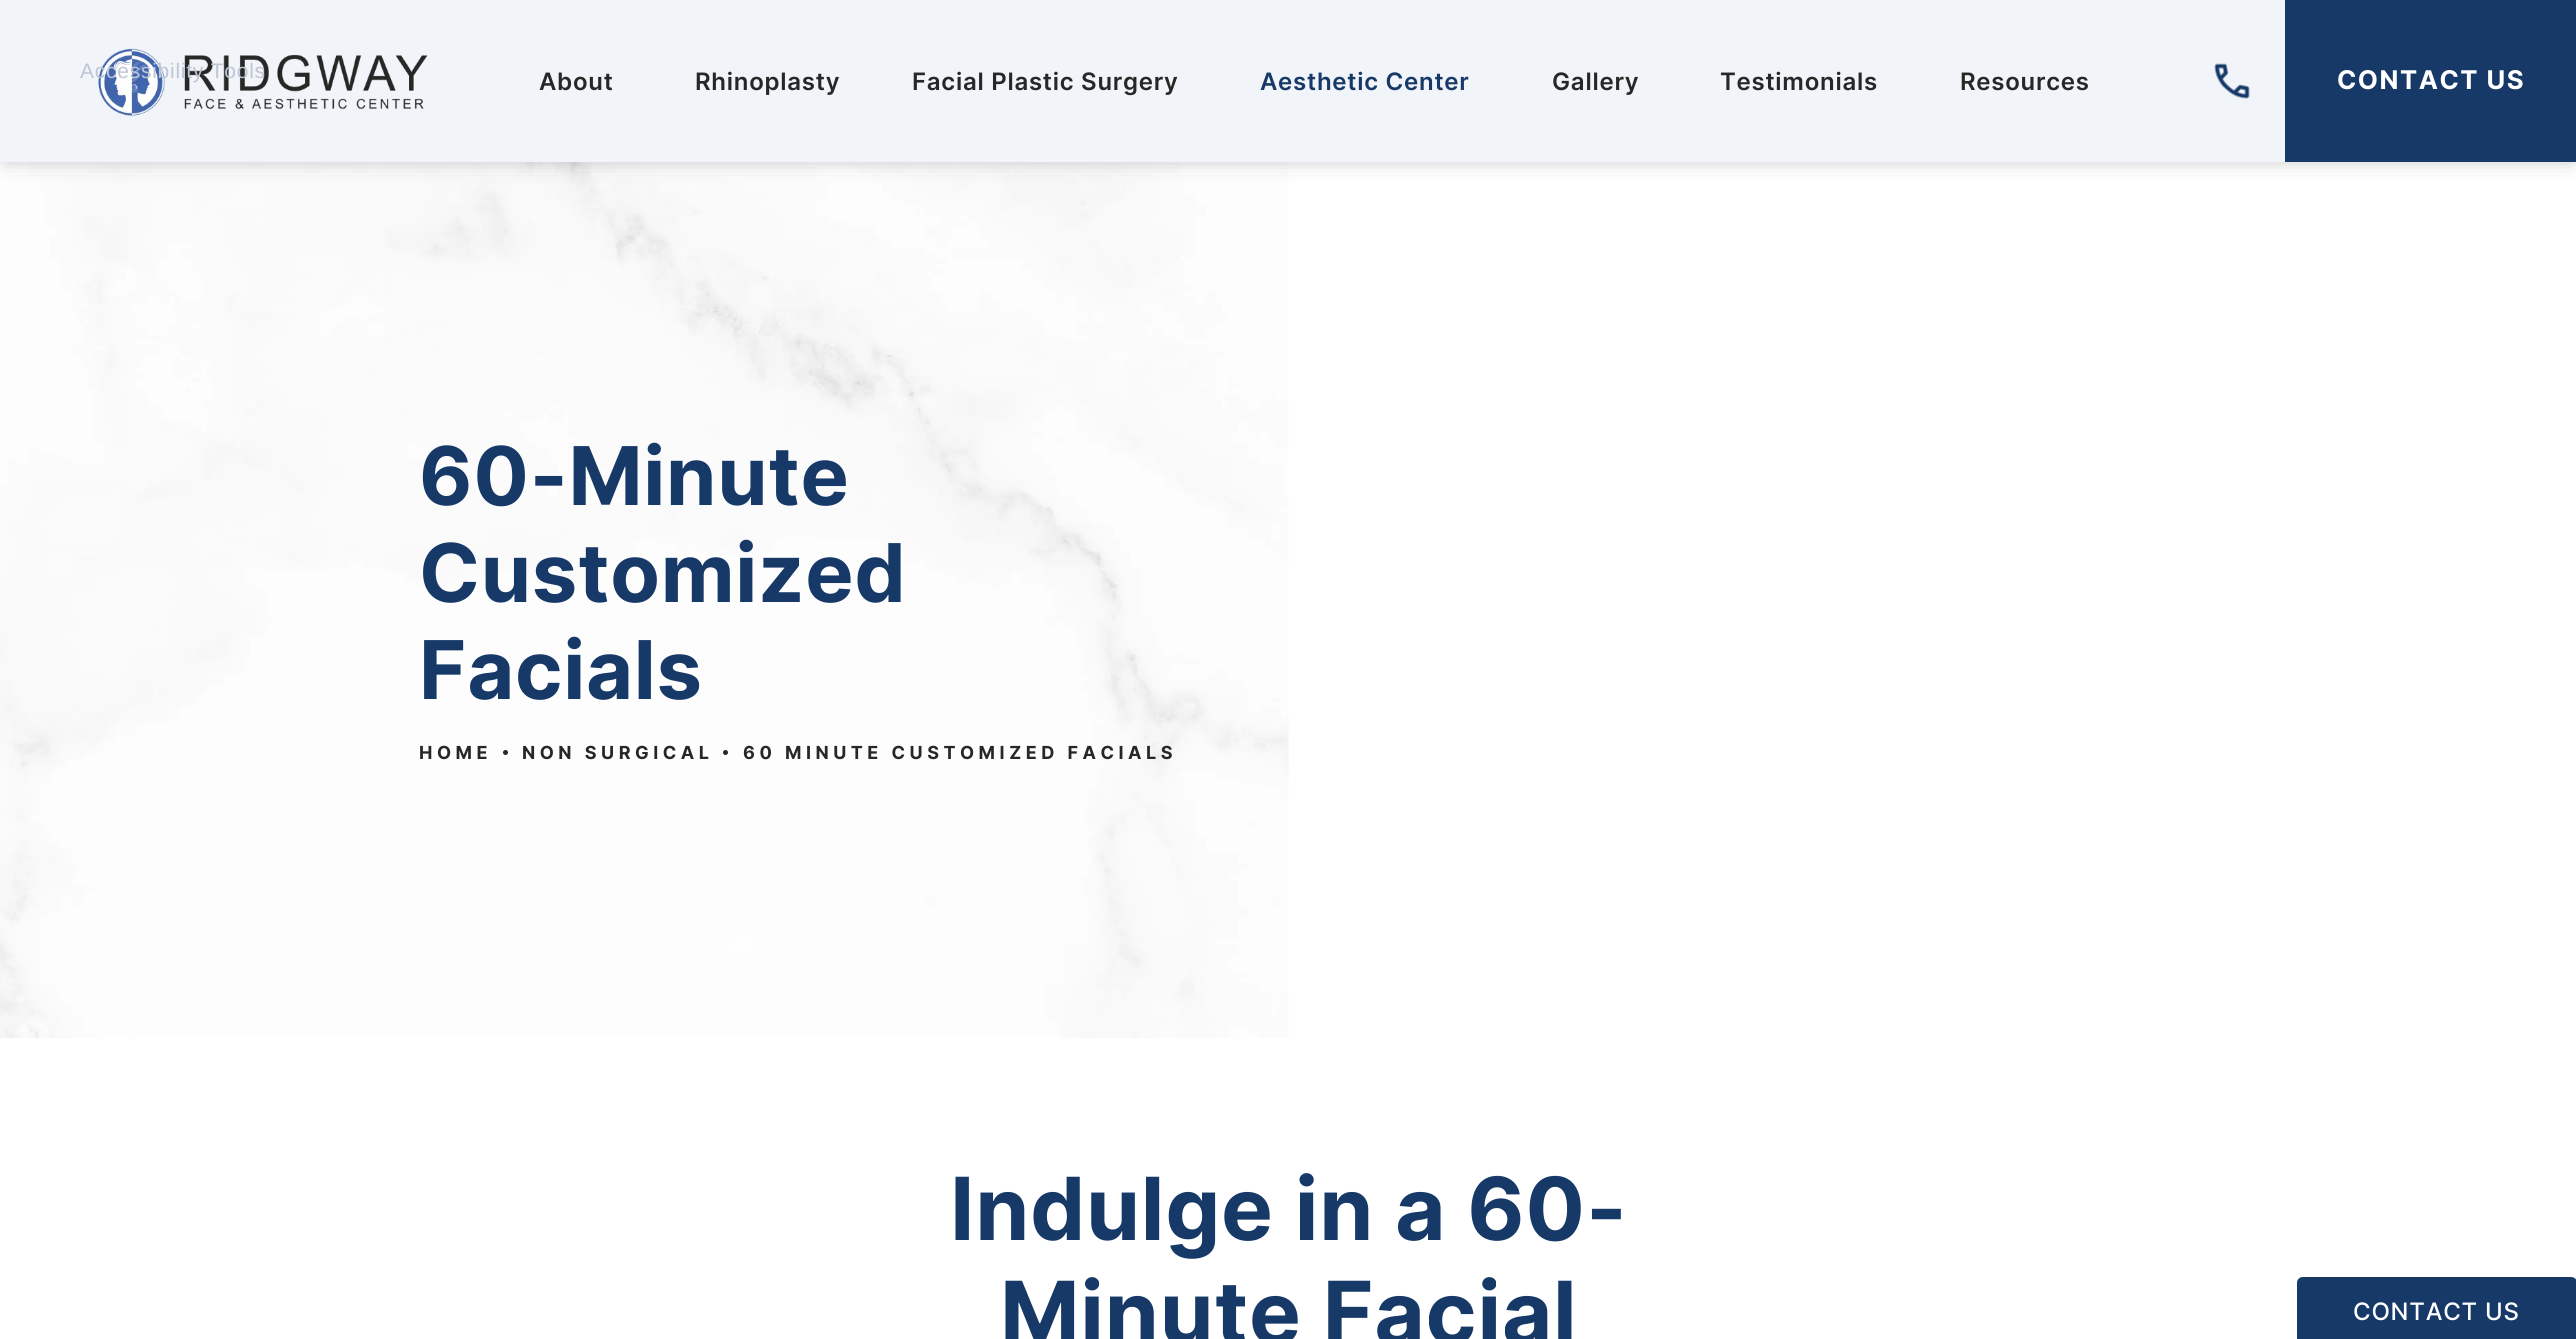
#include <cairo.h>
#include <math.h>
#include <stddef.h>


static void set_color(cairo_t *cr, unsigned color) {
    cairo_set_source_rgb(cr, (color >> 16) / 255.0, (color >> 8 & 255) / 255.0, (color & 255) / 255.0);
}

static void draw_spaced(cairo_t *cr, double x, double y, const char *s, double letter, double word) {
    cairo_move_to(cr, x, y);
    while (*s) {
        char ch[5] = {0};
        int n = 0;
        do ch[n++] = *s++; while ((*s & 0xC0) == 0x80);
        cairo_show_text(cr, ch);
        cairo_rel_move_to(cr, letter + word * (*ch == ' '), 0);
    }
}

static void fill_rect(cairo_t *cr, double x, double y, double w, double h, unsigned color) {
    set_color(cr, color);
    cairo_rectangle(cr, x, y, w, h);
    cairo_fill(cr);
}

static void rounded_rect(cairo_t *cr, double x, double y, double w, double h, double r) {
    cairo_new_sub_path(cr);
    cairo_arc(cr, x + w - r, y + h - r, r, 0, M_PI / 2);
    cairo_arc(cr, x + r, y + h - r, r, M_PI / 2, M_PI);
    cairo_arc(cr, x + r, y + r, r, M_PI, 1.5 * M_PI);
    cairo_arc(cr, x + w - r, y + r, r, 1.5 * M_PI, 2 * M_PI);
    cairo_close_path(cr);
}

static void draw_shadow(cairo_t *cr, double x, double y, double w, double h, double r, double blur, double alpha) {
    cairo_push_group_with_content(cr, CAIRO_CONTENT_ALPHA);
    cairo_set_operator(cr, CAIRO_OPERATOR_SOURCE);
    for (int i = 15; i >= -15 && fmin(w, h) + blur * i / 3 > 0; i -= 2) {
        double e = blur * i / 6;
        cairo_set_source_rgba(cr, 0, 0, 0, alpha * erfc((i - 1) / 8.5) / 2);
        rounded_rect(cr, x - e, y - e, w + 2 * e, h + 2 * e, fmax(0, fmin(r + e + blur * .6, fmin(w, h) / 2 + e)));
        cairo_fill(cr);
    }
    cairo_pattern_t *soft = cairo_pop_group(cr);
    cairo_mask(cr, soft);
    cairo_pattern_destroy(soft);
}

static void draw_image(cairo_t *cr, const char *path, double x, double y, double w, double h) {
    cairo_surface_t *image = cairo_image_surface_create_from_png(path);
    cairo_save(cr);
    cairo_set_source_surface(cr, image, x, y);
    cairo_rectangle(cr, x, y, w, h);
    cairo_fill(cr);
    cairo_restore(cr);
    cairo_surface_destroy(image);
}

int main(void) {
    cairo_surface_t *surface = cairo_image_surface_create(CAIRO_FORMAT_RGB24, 2576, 1339);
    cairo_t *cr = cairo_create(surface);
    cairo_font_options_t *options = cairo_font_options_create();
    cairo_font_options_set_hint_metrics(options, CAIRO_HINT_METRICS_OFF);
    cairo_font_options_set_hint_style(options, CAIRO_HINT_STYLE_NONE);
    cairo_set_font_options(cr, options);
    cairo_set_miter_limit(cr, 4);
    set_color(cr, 0xFFFFFF);
    cairo_paint(cr);
    draw_image(cr, "assets/img3.png", 0, 162, 1289, 876);
    set_color(cr, 0x141414);
    draw_shadow(cr, 6, 6, 2565, 150, 0, 11, 0.4);
    fill_rect(cr, 0, 0, 2285, 162, 0xF1F4F8);
    draw_image(cr, "assets/img1.png", 98, 48, 330, 68);
    cairo_select_font_face(cr, "Liberation Sans", CAIRO_FONT_SLANT_NORMAL, CAIRO_FONT_WEIGHT_NORMAL);
    cairo_set_font_size(cr, 21);
    set_color(cr, 0xBEC6D5);
    draw_spaced(cr, 80, 78, "Accessibility Tools", 0.75, 0);
    cairo_select_font_face(cr, "Inter SemiBold", CAIRO_FONT_SLANT_NORMAL, CAIRO_FONT_WEIGHT_NORMAL);
    cairo_set_font_size(cr, 24);
    set_color(cr, 0x272727);
    draw_spaced(cr, 539, 90, "About", 0.75, 0);
    draw_spaced(cr, 695, 90, "Rhinoplasty", 0.75, 0);
    draw_spaced(cr, 912, 90, "Facial Plastic Surgery", 0.75, 0);
    set_color(cr, 0x173968);
    draw_spaced(cr, 1260, 90, "Aesthetic Center", 0.75, 0);
    set_color(cr, 0x272727);
    draw_spaced(cr, 1552, 90, "Gallery", 0.75, 0);
    draw_spaced(cr, 1720, 90, "Testimonials", 0.75, 0);
    draw_spaced(cr, 1960, 90, "Resources", 0.75, 0);
    draw_image(cr, "assets/img2.png", 2214, 63, 36, 36);
    fill_rect(cr, 2285, 0, 291, 162, 0x173968);
    cairo_select_font_face(cr, "Inter", CAIRO_FONT_SLANT_NORMAL, CAIRO_FONT_WEIGHT_BOLD);
    cairo_set_font_size(cr, 25.75);
    set_color(cr, 0xFFFFFF);
    draw_spaced(cr, 2337, 89, "CONTACT US", 1.5, 0);
    cairo_set_font_size(cr, 81);
    set_color(cr, 0x173968);
    draw_spaced(cr, 419, 505, "60-Minute", 0.75, 0);
    draw_spaced(cr, 419, 602, "Customized", 0.75, 0);
    draw_spaced(cr, 419, 699, "Facials", 0.75, 0);
    cairo_set_font_size(cr, 18);
    set_color(cr, 0x272727);
    draw_spaced(cr, 419, 759, "HOME", 4.5, 0);
    cairo_new_path(cr);
    cairo_arc(cr, 505.5, 752.5, 2.5, 0, 2 * M_PI);
    cairo_fill(cr);
    draw_spaced(cr, 522, 759, "NON SURGICAL", 4.5, 0);
    cairo_new_path(cr);
    cairo_arc(cr, 725.5, 752.5, 2.5, 0, 2 * M_PI);
    cairo_fill(cr);
    draw_spaced(cr, 743, 759, "60 MINUTE CUSTOMIZED FACIALS", 4.5, 0);
    cairo_set_font_size(cr, 87);
    set_color(cr, 0x173968);
    draw_spaced(cr, 950, 1240, "Indulge in a 60-", 0.75, 0);
    draw_spaced(cr, 1000, 1344, "Minute Facial", 0.75, 0);
    cairo_new_path(cr);
    cairo_move_to(cr, 2303, 1277);
    cairo_line_to(cr, 2571, 1277);
    cairo_curve_to(cr, 2574.5, 1277, 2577, 1279.5, 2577, 1283);
    cairo_line_to(cr, 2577, 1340);
    cairo_line_to(cr, 2297, 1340);
    cairo_line_to(cr, 2297, 1283);
    cairo_curve_to(cr, 2297, 1279.5, 2299.5, 1277, 2303, 1277);
    cairo_close_path(cr);
    cairo_fill(cr);
    cairo_select_font_face(cr, "Inter Medium", CAIRO_FONT_SLANT_NORMAL, CAIRO_FONT_WEIGHT_NORMAL);
    cairo_set_font_size(cr, 24);
    set_color(cr, 0xFFFFFF);
    draw_spaced(cr, 2353, 1320, "CONTACT US", 0.75, 0);
    cairo_surface_write_to_png(surface, "output.png");
    cairo_font_options_destroy(options);
    cairo_destroy(cr);
    cairo_surface_destroy(surface);
    return 0;
}
